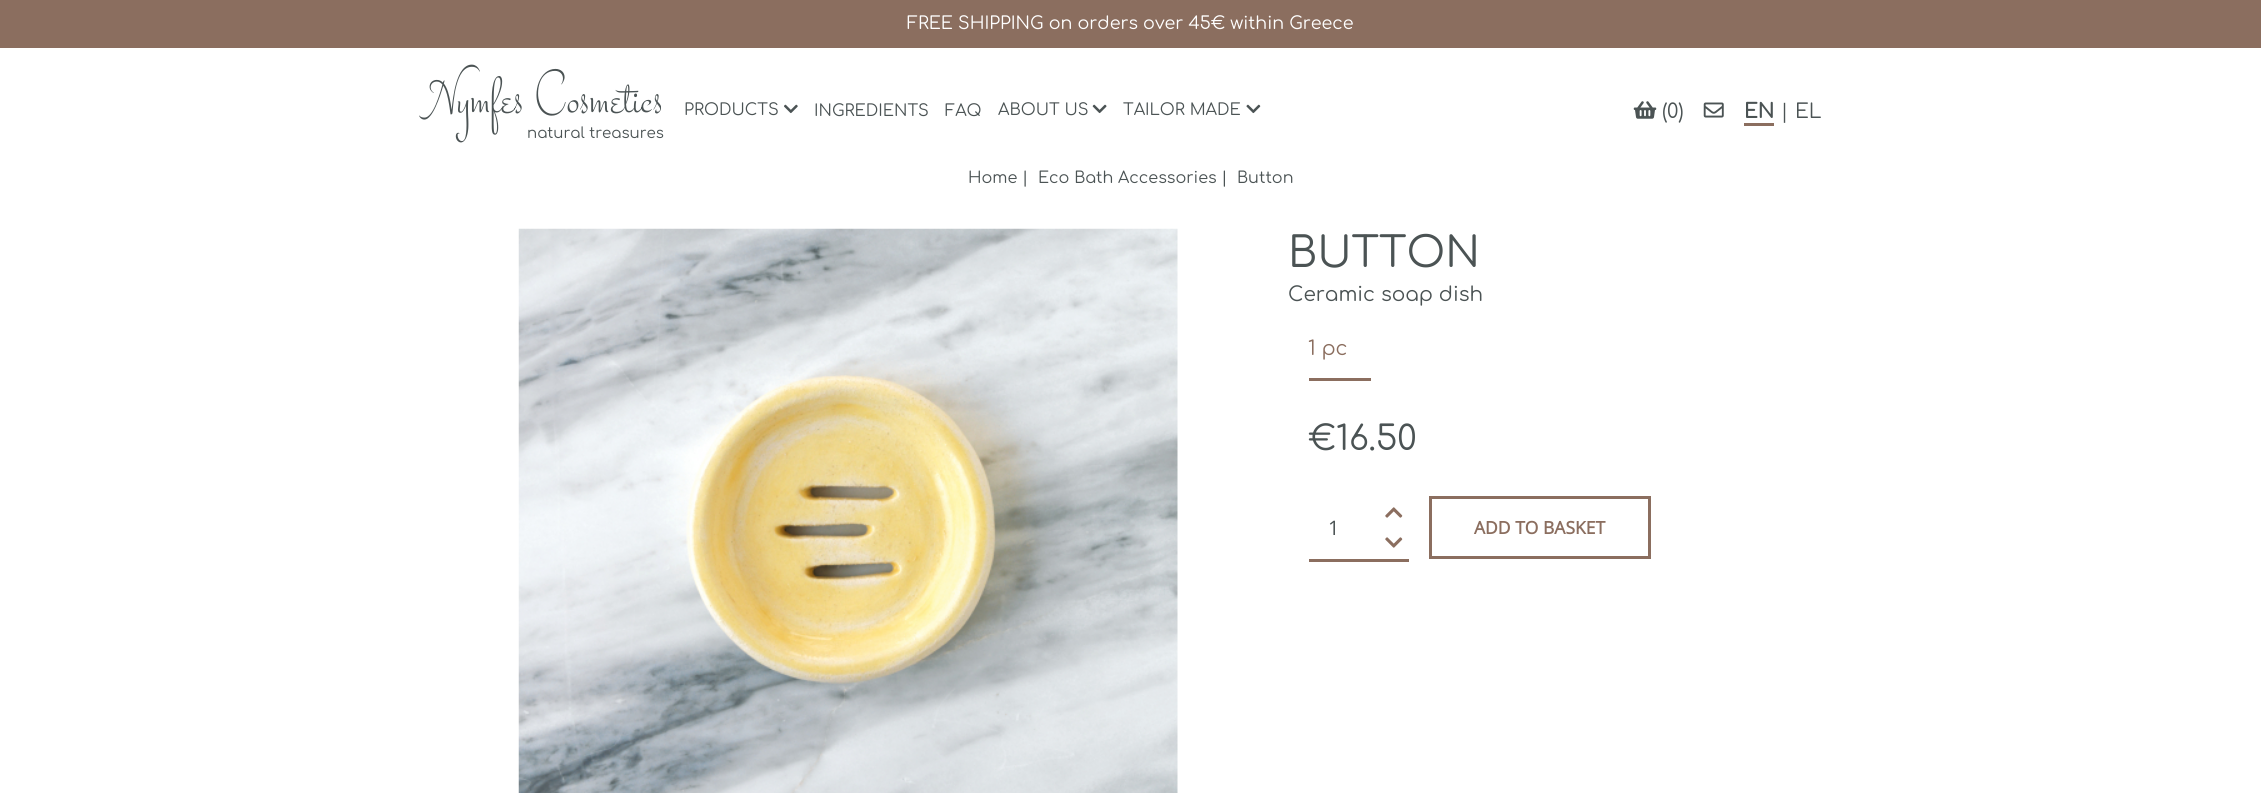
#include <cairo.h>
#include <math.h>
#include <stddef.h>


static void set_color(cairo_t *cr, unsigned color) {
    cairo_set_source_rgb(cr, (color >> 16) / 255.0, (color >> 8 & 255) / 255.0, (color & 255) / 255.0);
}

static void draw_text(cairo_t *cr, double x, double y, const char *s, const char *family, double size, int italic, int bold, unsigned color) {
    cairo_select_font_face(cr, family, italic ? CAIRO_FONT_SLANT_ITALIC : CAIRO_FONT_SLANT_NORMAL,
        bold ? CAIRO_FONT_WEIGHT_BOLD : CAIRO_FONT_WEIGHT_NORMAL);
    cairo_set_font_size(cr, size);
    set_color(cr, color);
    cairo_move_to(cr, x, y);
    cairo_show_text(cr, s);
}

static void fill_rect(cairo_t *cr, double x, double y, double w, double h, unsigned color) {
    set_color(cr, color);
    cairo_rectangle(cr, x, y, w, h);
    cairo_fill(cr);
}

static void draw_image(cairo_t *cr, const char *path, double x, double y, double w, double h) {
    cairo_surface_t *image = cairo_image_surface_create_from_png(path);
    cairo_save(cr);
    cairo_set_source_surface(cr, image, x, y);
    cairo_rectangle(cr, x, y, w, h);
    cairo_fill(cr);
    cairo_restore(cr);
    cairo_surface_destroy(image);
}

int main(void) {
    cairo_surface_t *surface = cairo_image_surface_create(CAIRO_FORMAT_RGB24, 2261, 793);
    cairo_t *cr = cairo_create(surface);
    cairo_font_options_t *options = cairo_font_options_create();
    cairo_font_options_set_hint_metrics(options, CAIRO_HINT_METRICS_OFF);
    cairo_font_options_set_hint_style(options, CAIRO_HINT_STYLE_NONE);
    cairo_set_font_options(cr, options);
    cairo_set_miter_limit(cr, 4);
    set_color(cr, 0xFFFFFF);
    cairo_paint(cr);
    fill_rect(cr, 0, 0, 2261, 48, 0x8B6E5F);
    draw_text(cr, 907, 29, "FREE SHIPPING on orders over 45€ within Greece", "Comfortaa", 17.5, 0, 0, 0xFFFFFF);
    draw_text(cr, 419, 113, "Nymfes Cosmetics", "Stalemate", 60, 0, 0, 0x4B5354);
    draw_text(cr, 527, 138, "natural treasures", "Comfortaa", 15, 0, 0, 0x4B5354);
    draw_text(cr, 684, 115, "PRODUCTS", "Comfortaa", 16.25, 0, 0, 0x4B5354);
    draw_image(cr, "assets/img1.png", 784, 104, 14, 10);
    draw_text(cr, 814, 116, "INGREDIENTS", "Comfortaa", 16.25, 0, 0, 0x4B5354);
    draw_text(cr, 945, 116, "FAQ", "Comfortaa", 16.25, 0, 0, 0x4B5354);
    draw_text(cr, 998, 115, "ABOUT US", "Comfortaa", 16.25, 0, 0, 0x4B5354);
    draw_image(cr, "assets/img2.png", 1092, 104, 15, 10);
    draw_text(cr, 1123, 115, "TAILOR MADE", "Comfortaa", 16.25, 0, 0, 0x4B5354);
    draw_image(cr, "assets/img3.png", 1246, 104, 15, 10);
    draw_image(cr, "assets/img4.png", 1633, 101, 24, 18);
    draw_text(cr, 1662, 118, "(0)", "Comfortaa", 20, 0, 0, 0x4B5354);
    draw_image(cr, "assets/img5.png", 1703, 102, 21, 16);
    draw_text(cr, 1744, 118, "EN", "Comfortaa", 20, 0, 1, 0x4B5354);
    fill_rect(cr, 1744, 123, 30, 3, 0x8B6E5F);
    draw_text(cr, 1779, 118, "|", "Open Sans", 20, 0, 0, 0x4B5354);
    draw_text(cr, 1795, 118, "EL", "Comfortaa", 20, 0, 0, 0x4B5354);
    draw_text(cr, 968, 183, "Home |", "Comfortaa", 16, 0, 0, 0x4B5354);
    draw_text(cr, 1038, 183, "Eco Bath Accessories |", "Comfortaa", 16, 0, 0, 0x4B5354);
    draw_text(cr, 1237, 183, "Button", "Comfortaa", 16, 0, 0, 0x4B5354);
    draw_image(cr, "assets/img6.png", 518, 228, 660, 565);
    draw_text(cr, 1288, 267, "BUTTON", "Comfortaa", 42, 0, 0, 0x4B5354);
    draw_text(cr, 1288, 301, "Ceramic soap dish", "Comfortaa", 20, 0, 0, 0x4B5354);
    draw_text(cr, 1308, 355, "1 pc", "Comfortaa", 20, 0, 0, 0x8B6E5F);
    fill_rect(cr, 1309, 378, 62, 3, 0x8B6E5F);
    draw_text(cr, 1308, 450, "€16.50", "Comfortaa", 34, 0, 0, 0x4B5354);
    fill_rect(cr, 1309, 559, 100, 3, 0x8B6E5F);
    draw_image(cr, "assets/img7.png", 1385, 507, 18, 11);
    draw_text(cr, 1328, 535, "1", "Open Sans", 20, 0, 0, 0x4B5354);
    draw_image(cr, "assets/img8.png", 1385, 537, 18, 11);
    cairo_rectangle(cr, 1430.5, 497.5, 219, 60);
    set_color(cr, 0x8B6E5F);
    cairo_set_line_width(cr, 3);
    cairo_stroke(cr);
    draw_text(cr, 1474, 534, "ADD TO BASKET", "Open Sans", 17.5, 0, 1, 0x8B6E5F);
    cairo_surface_write_to_png(surface, "output.png");
    cairo_font_options_destroy(options);
    cairo_destroy(cr);
    cairo_surface_destroy(surface);
    return 0;
}
